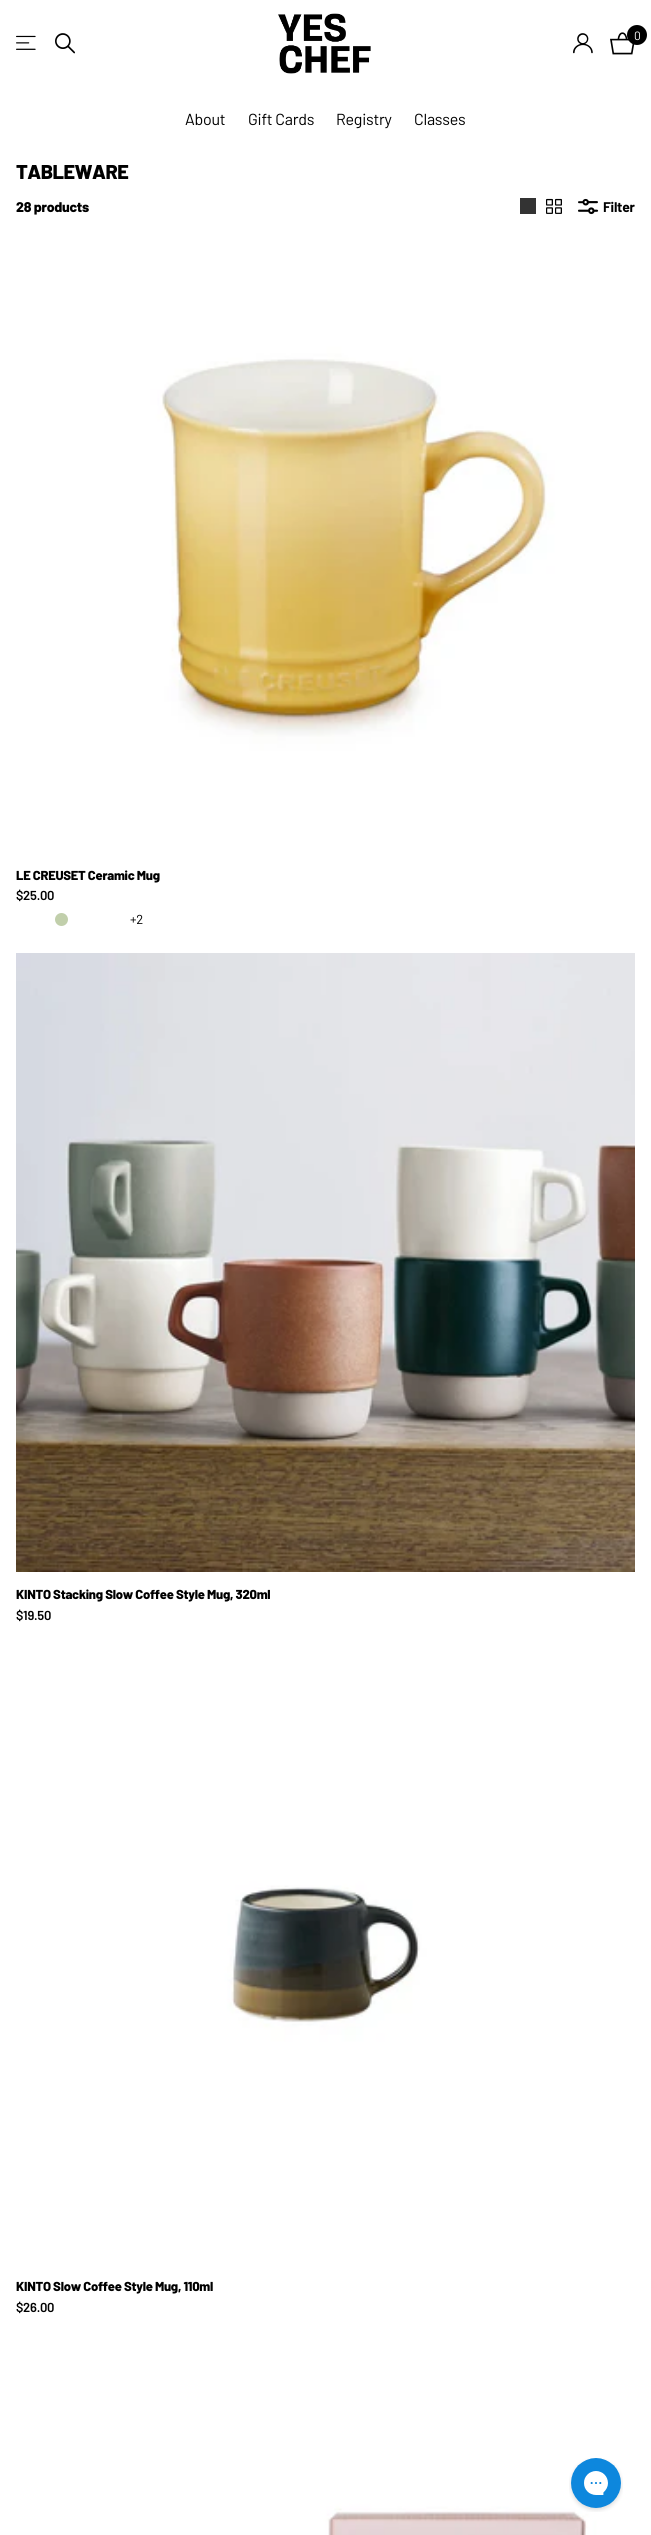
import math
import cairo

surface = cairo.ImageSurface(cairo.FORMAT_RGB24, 651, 2535)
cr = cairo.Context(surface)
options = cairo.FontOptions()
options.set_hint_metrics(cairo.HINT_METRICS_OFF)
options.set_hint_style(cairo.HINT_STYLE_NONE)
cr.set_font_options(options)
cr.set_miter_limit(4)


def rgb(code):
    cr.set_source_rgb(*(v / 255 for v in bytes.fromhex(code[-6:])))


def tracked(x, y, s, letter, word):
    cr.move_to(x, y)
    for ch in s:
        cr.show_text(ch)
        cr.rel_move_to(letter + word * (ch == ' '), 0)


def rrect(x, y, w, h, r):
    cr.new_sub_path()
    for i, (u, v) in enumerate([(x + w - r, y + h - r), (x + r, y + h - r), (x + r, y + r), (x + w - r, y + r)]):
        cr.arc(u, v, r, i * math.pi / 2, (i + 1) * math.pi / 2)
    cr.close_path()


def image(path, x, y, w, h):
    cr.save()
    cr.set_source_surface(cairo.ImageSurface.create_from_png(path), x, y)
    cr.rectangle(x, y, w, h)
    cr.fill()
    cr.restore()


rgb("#ffffff")
cr.paint()
image("img/1.png", 16, 35, 20, 15)
image("img/2.png", 55, 33, 20, 21)
image("img/3.png", 278, 13, 93, 61)
image("img/4.png", 573, 33, 20, 21)
image("img/5.png", 610, 32, 25, 23)
rgb("#000000")
cr.arc(637, 35, 10, 0, 2 * math.pi)
cr.fill()
rgb("#333333")
cr.rectangle(520, 198, 16, 16)
cr.fill()
image("img/6.png", 546, 198, 16, 16)
image("img/7.png", 578, 198, 21, 17)
image("img/8.png", 16, 234, 619, 619)
cr.save()
rrect(55, 913, 13, 13, 6.5)
cr.clip()
rgb("#c1cfab")
cr.arc(61.5, 919.5, 7.5, 0, 2 * math.pi)
cr.fill()
cr.restore()
image("img/9.png", 16, 953, 619, 619)
image("img/10.png", 16, 1645, 619, 619)
image("img/11.png", 16, 2337, 619, 198)
image("img/12.png", 569, 2458, 54, 54)
cr.select_font_face("Barlow")
cr.set_font_size(12)
rgb("#ffffff")
cr.move_to(634, 40)
cr.show_text("0")
cr.set_font_size(16)
rgb("#000000")
for x, y, s in [
    (185, 125, "About"),
    (248, 125, "Gift Cards"),
    (336, 125, "Registry"),
    (414, 125, "Classes"),
]:
    tracked(x, y, s, -0.25, 0)
cr.select_font_face("Barlow ExtraBold")
cr.set_font_size(20)
tracked(16, 179, "TABLEWARE", -0.5, 0)
cr.set_font_size(14)
tracked(16, 212, "28 products", -0.25, 0)
cr.select_font_face("Barlow", cairo.FONT_SLANT_NORMAL, cairo.FONT_WEIGHT_BOLD)
tracked(603, 212, "Filter", -0.25, 0)
cr.select_font_face("Barlow ExtraBold")
cr.set_font_size(13)
tracked(16, 880, "LE CREUSET Ceramic Mug", -0.25, 0)
cr.select_font_face("Barlow SemiBold")
tracked(16, 900, "$25.00", -0.25, 0)
cr.select_font_face("Barlow")
tracked(130, 924, "+2", -0.25, 0)
cr.select_font_face("Barlow ExtraBold")
tracked(16, 1599, "KINTO Stacking Slow Coffee Style Mug, 320ml", -0.25, 0)
cr.select_font_face("Barlow SemiBold")
tracked(16, 1620, "$19.50", -0.25, 0)
cr.select_font_face("Barlow ExtraBold")
tracked(16, 2291, "KINTO Slow Coffee Style Mug, 110ml", -0.25, 0)
cr.select_font_face("Barlow SemiBold")
tracked(16, 2312, "$26.00", -0.25, 0)
surface.write_to_png("page.png")
